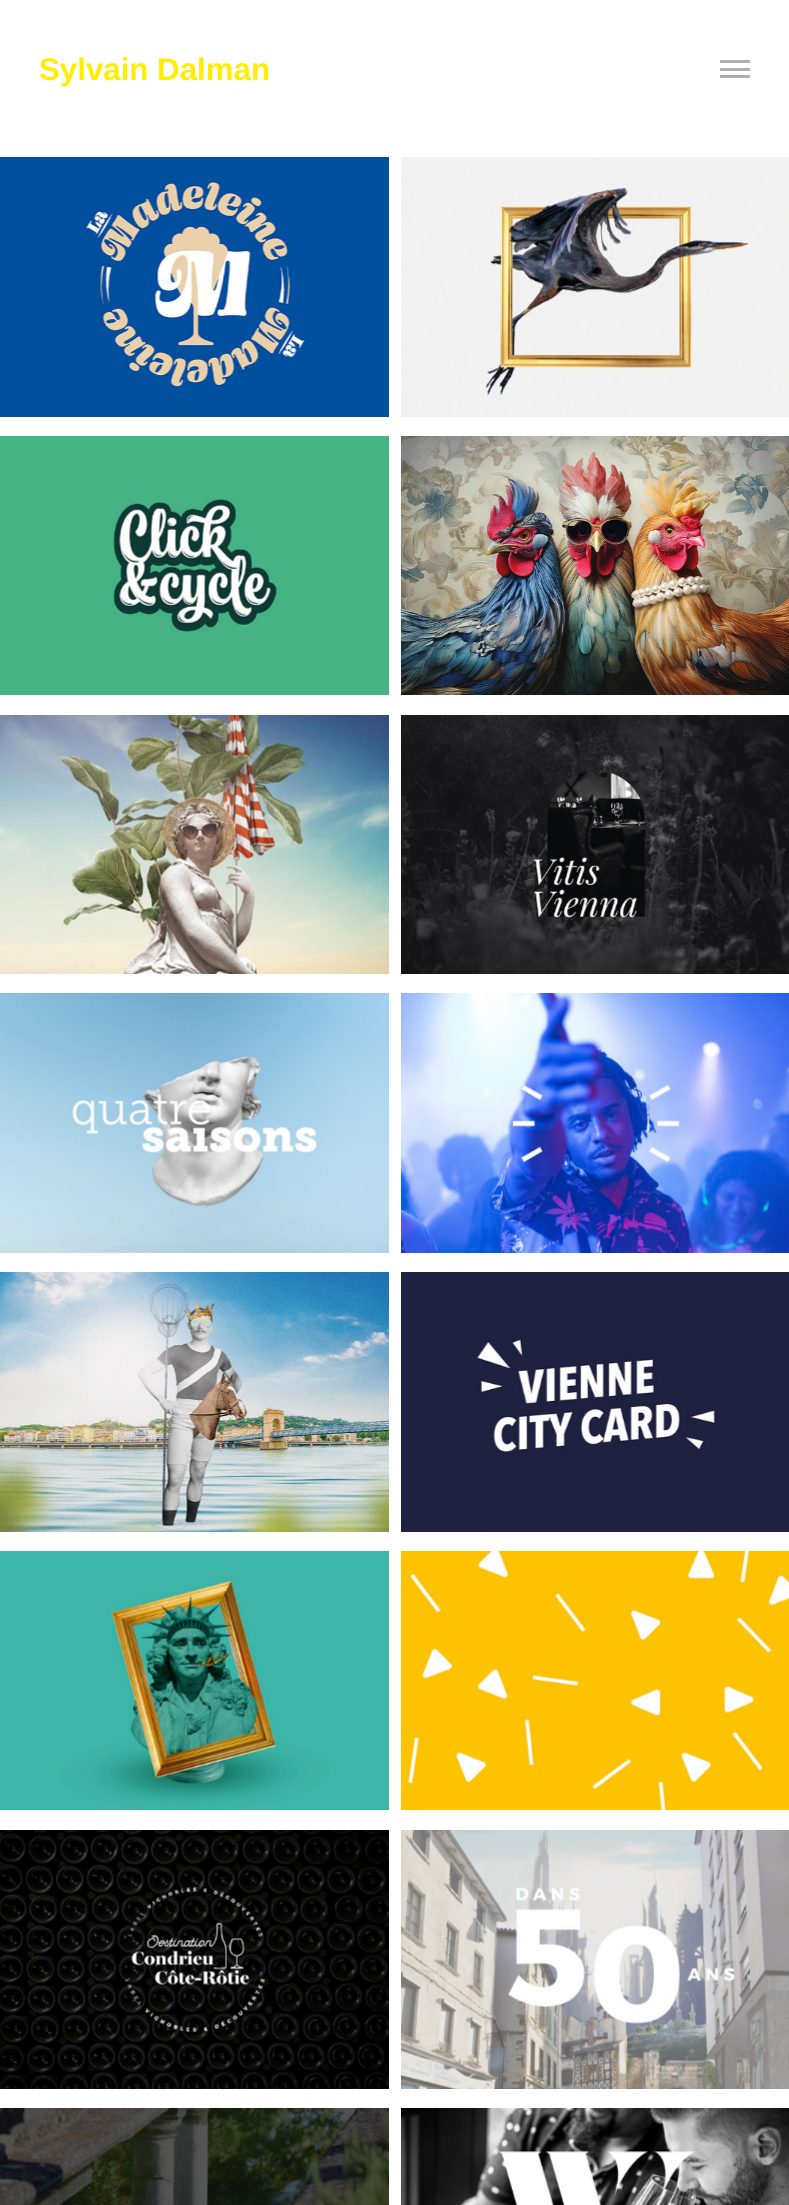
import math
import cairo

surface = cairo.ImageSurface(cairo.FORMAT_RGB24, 789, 2205)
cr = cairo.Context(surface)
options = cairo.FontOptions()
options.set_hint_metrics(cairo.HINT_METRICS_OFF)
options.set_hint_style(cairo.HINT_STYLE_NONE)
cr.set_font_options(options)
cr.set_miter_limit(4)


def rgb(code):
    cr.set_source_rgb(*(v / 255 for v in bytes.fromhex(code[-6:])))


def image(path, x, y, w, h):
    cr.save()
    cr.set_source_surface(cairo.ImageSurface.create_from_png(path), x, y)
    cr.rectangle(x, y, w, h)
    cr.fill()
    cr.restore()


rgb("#ffffff")
cr.paint()
for x, y, w, h, color in [
    (720, 60, 30, 3, "#aeaeae"),
    (720, 68, 30, 3, "#aeaeae"),
    (720, 75, 30, 3, "#aeaeae"),
]:
    rgb(color)
    cr.rectangle(x, y, w, h)
    cr.fill()
image("img/1.png", 0, 157, 389, 260)
image("img/2.png", 401, 157, 388, 260)
image("img/3.png", 0, 436, 389, 259)
image("img/4.png", 401, 436, 388, 259)
image("img/5.png", 0, 715, 389, 259)
image("img/6.png", 401, 715, 388, 259)
image("img/7.png", 0, 993, 389, 260)
image("img/8.png", 401, 993, 388, 260)
image("img/9.png", 0, 1272, 389, 260)
image("img/10.png", 401, 1272, 388, 260)
image("img/11.png", 0, 1551, 389, 259)
image("img/12.png", 401, 1551, 388, 259)
image("img/13.png", 0, 1830, 389, 259)
image("img/14.png", 401, 1830, 388, 259)
image("img/15.png", 0, 2108, 389, 97)
image("img/16.png", 401, 2108, 388, 97)
cr.select_font_face("Liberation Sans", cairo.FONT_SLANT_NORMAL, cairo.FONT_WEIGHT_BOLD)
cr.set_font_size(31.25)
rgb("#ffee00")
cr.move_to(39, 80)
cr.show_text("Sylvain Dalman")
surface.write_to_png("page.png")
